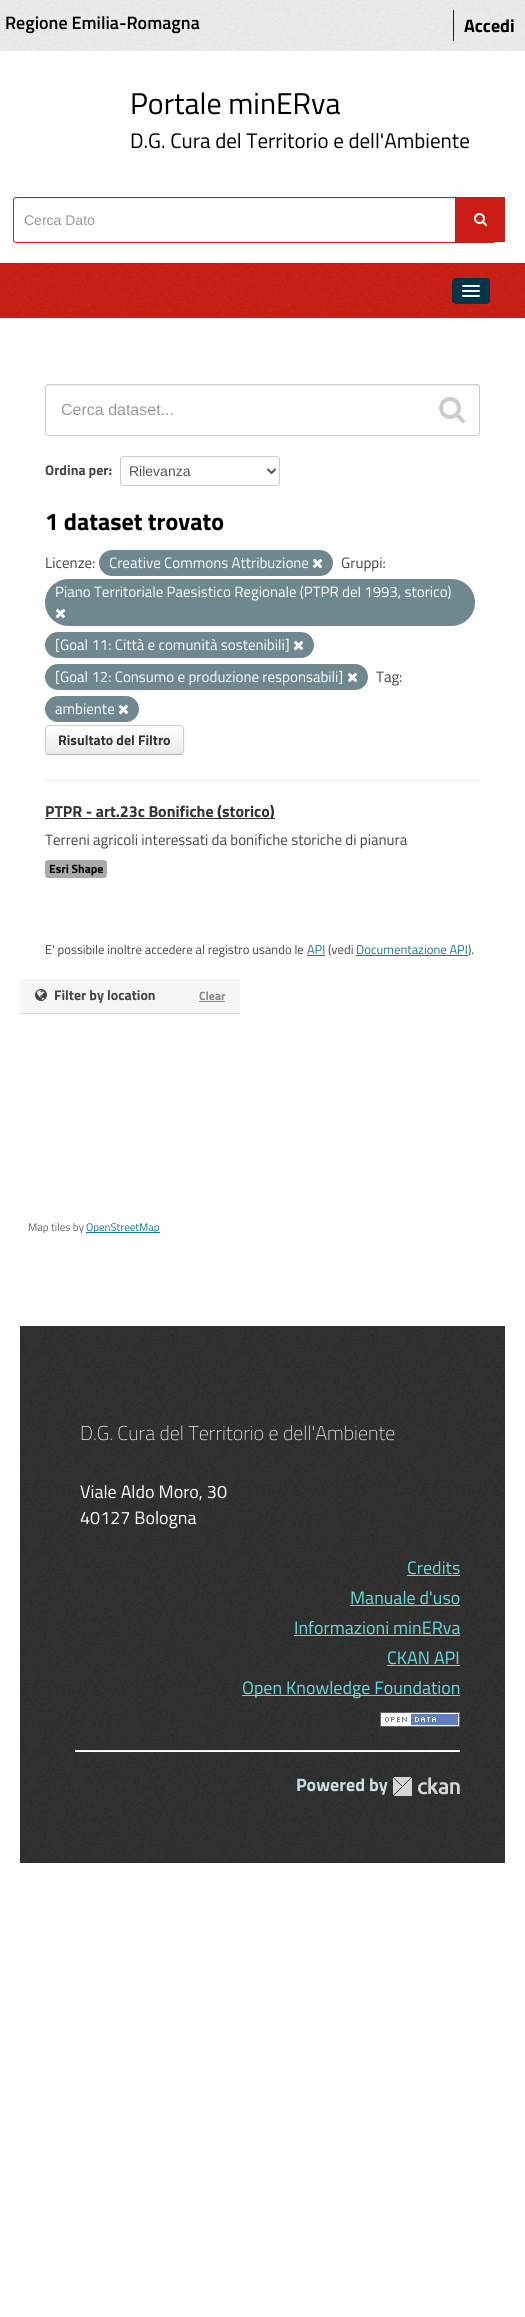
import math
import cairo

surface = cairo.ImageSurface(cairo.FORMAT_RGB24, 525, 2317)
cr = cairo.Context(surface)
options = cairo.FontOptions()
options.set_hint_metrics(cairo.HINT_METRICS_OFF)
options.set_hint_style(cairo.HINT_STYLE_NONE)
cr.set_font_options(options)
cr.set_miter_limit(4)


def rgb(code):
    cr.set_source_rgb(*(v / 255 for v in bytes.fromhex(code[-6:])))


def rrect(x, y, w, h, r):
    cr.new_sub_path()
    for i, (u, v) in enumerate([(x + w - r, y + h - r), (x + r, y + h - r), (x + r, y + r), (x + w - r, y + r)]):
        cr.arc(u, v, r, i * math.pi / 2, (i + 1) * math.pi / 2)
    cr.close_path()


def soft_shadow(x, y, w, h, r, blur, alpha):
    cr.push_group_with_content(cairo.CONTENT_ALPHA)
    cr.set_operator(cairo.OPERATOR_SOURCE)
    for i in range(15, -16, -2):
        e = blur * i / 6
        if min(w, h) + 2 * e > 0:
            cr.set_source_rgba(0, 0, 0, alpha * math.erfc((i - 1) / 8.5) / 2)
            rrect(x - e, y - e, w + 2 * e, h + 2 * e, max(0, min(r + e + blur * .6, min(w, h) / 2 + e)))
            cr.fill()
    cr.mask(cr.pop_group())


def image(path, x, y, w, h):
    cr.save()
    cr.set_source_surface(cairo.ImageSurface.create_from_png(path), x, y)
    cr.rectangle(x, y, w, h)
    cr.fill()
    cr.restore()


rgb("#ffffff")
cr.paint()
rgb("#eeeeee")
cr.rectangle(0, 0, 525, 51)
cr.fill()
image("img/1.png", 0, 0, 525, 51)
rgb("#00232e")
cr.rectangle(453, 10, 1, 31)
cr.fill()
rgb("#ececec")
cr.new_path()
cr.move_to(16, 199)
cr.line_to(493, 199)
cr.curve_to(494, 199, 495, 200, 495, 201)
cr.line_to(495, 199)
cr.line_to(493, 198)
cr.line_to(15, 198)
cr.curve_to(14, 199, 14, 200, 14, 201)
cr.curve_to(14, 200, 15, 199, 16, 199)
cr.close_path()
cr.fill()
rrect(13.5, 197.5, 482, 45, 2.5)
rgb("#cb1d15")
cr.set_line_width(1)
cr.stroke()
cr.rectangle(455, 197, 50, 45)
cr.fill()
image("img/2.png", 474, 213, 13, 13)
cr.rectangle(0, 263, 525, 55)
cr.fill()
image("img/3.png", 0, 263, 525, 55)
rgb("#003647")
rrect(452, 278, 38, 26, 4)
cr.fill()
rgb("#002935")
cr.new_path()
cr.move_to(462, 286.5)
cr.curve_to(461, 288.5, 465.5, 288, 465.5, 288)
cr.line_to(476.5, 288)
cr.curve_to(476.5, 288, 481, 288.5, 480, 286.5)
cr.curve_to(479, 287.5, 472.5, 287, 471, 287)
cr.curve_to(469.5, 287, 463, 287.5, 462, 286.5)
cr.close_path()
cr.fill()
rgb("#f5f5f5")
rrect(462, 285, 18, 2, 1)
cr.fill()
rgb("#002935")
cr.new_path()
cr.move_to(462, 291.5)
cr.curve_to(461, 293.5, 465.5, 293, 465.5, 293)
cr.line_to(476.5, 293)
cr.curve_to(476.5, 293, 481, 293.5, 480, 291.5)
cr.curve_to(479, 292.5, 472.5, 292, 471, 292)
cr.curve_to(469.5, 292, 463, 292.5, 462, 291.5)
cr.close_path()
cr.fill()
rgb("#f5f5f5")
rrect(462, 290, 18, 2, 1)
cr.fill()
rgb("#002935")
cr.new_path()
cr.move_to(462, 296.5)
cr.curve_to(461, 298.5, 465.5, 298, 465.5, 298)
cr.line_to(476.5, 298)
cr.curve_to(476.5, 298, 481, 298.5, 480, 296.5)
cr.curve_to(479, 297.5, 472.5, 297, 471, 297)
cr.curve_to(469.5, 297, 463, 297.5, 462, 296.5)
cr.close_path()
cr.fill()
rgb("#f5f5f5")
rrect(462, 295, 18, 2, 1)
cr.fill()
cr.new_path()
cr.move_to(45, 780.5)
cr.line_to(480, 780.5)
rgb("#dddddd")
cr.set_dash([1, 1])
cr.stroke()
rgb("#ececec")
cr.new_path()
cr.move_to(48, 386)
cr.line_to(477, 386)
cr.curve_to(478, 386, 479, 387, 479, 388)
cr.line_to(479, 386)
cr.line_to(477, 385)
cr.line_to(48, 385)
cr.curve_to(46, 385, 46, 387, 46, 388)
cr.curve_to(46, 387, 47, 386, 48, 386)
cr.close_path()
cr.fill()
rrect(45.5, 384.5, 434, 51, 2.5)
rgb("#cccccc")
cr.set_dash([])
cr.stroke()
image("img/4.png", 439, 397, 26, 26)
rrect(120.5, 456.5, 159, 29, 2.5)
cr.stroke()
cr.new_path()
cr.move_to(267.5, 469)
cr.line_to(271.5, 473)
cr.line_to(275.5, 469)
rgb("#555555")
cr.set_line_width(2)
cr.stroke()
rgb("#6f8890")
rrect(99, 550, 234, 26, 13)
cr.fill()
image("img/5.png", 312, 558, 11, 11)
rrect(45, 579, 430, 47, 23.5)
cr.fill()
image("img/5.png", 55, 608, 11, 11)
rrect(45, 632, 269, 26, 13)
cr.fill()
image("img/5.png", 293, 640, 11, 11)
rrect(45, 664, 323, 26, 13)
cr.fill()
image("img/5.png", 347, 672, 11, 11)
rrect(45, 696, 94, 26, 13)
cr.fill()
image("img/5.png", 118, 704, 11, 11)
rgb("#000000")
soft_shadow(45, 726, 139, 30, 4, 1, 0.05)
cr.save()
rrect(45, 725, 139, 30, 4)
cr.clip()
gradient = cairo.LinearGradient(115, 726, 115, 754)
gradient.add_color_stop_rgba(0, 1, 1, 1, 1)
gradient.add_color_stop_rgba(1, 0.918, 0.918, 0.918, 1)
cr.set_source(gradient)
cr.rectangle(45, 726, 139, 28)
cr.fill()
cr.restore()
cr.new_path()
cr.move_to(182.5, 753.5)
cr.curve_to(182, 754, 181, 754.5, 180, 754.5)
cr.line_to(49, 754.5)
cr.curve_to(48, 754.5, 47, 754, 46.5, 753.5)
rgb("#b3b3b3")
cr.set_line_width(1)
cr.stroke()
cr.new_path()
cr.move_to(46.5, 753.5)
cr.curve_to(44.5, 751.5, 45.5, 743, 45.5, 740)
cr.line_to(45.5, 732.5)
cr.curve_to(45.5, 730, 45, 725.5, 49, 725.5)
cr.line_to(180, 725.5)
cr.curve_to(184, 725.5, 183.5, 730, 183.5, 732.5)
cr.line_to(183.5, 740)
cr.curve_to(183.5, 743, 184.5, 751.5, 182.5, 753.5)
rgb("#cccccc")
cr.stroke()
rgb("#333333")
cr.rectangle(45, 818, 230, 1)
cr.fill()
rgb("#aaaaaa")
rrect(45, 860, 62, 18, 3)
cr.fill()
rgb("#187794")
cr.rectangle(307, 955, 18, 1)
cr.fill()
cr.rectangle(356, 955, 112, 1)
cr.fill()
rgb("#f6f6f6")
cr.new_path()
cr.move_to(23, 979)
cr.line_to(240, 979)
cr.line_to(240, 1014)
cr.line_to(20, 1014)
cr.line_to(20, 982)
cr.curve_to(20, 980.5, 21.5, 979, 23, 979)
cr.close_path()
cr.fill()
rgb("#dddddd")
cr.rectangle(20, 1013, 220, 1)
cr.fill()
image("img/6.png", 35, 989, 12, 12)
for x, y, w, h, color in [
    (199, 1001, 26, 1, "#888888"),
    (86, 1232, 74, 1, "#187794"),
    (20, 1326, 485, 537, "#303030"),
]:
    rgb(color)
    cr.rectangle(x, y, w, h)
    cr.fill()
image("img/7.png", 20, 1326, 485, 537)
for x, y, w, h, color in [
    (407, 1575, 53, 1, "#65dde0"),
    (350, 1605, 110, 1, "#65dde0"),
    (294, 1635, 166, 1, "#65dde0"),
    (387, 1665, 73, 1, "#65dde0"),
    (242, 1695, 218, 1, "#65dde0"),
]:
    rgb(color)
    cr.rectangle(x, y, w, h)
    cr.fill()
image("img/8.png", 380, 1712, 80, 15)
rgb("#eeeeee")
cr.rectangle(75, 1750, 385, 1)
cr.fill()
rgb("#ffffff")
cr.rectangle(75, 1751, 385, 1)
cr.fill()
image("img/9.png", 393, 1777, 67, 19)
cr.select_font_face("Titillium Web SemiBold")
cr.set_font_size(18)
rgb("#000000")
cr.move_to(5, 29)
cr.show_text("Regione Emilia-Romagna")
cr.select_font_face("Titillium Web", cairo.FONT_SLANT_NORMAL, cairo.FONT_WEIGHT_BOLD)
cr.move_to(464, 32)
cr.show_text("Accedi")
cr.select_font_face("Titillium Web")
cr.set_font_size(30)
cr.move_to(130, 114)
cr.show_text("Portale minERva")
cr.set_font_size(21)
cr.move_to(130, 148)
cr.show_text("D.G. Cura del Territorio e dell'Ambiente")
cr.select_font_face("Liberation Sans")
cr.set_font_size(14)
rgb("#999999")
cr.move_to(24, 225)
cr.show_text("Cerca Dato")
cr.set_font_size(16)
cr.move_to(61, 415)
cr.show_text("Cerca dataset...")
cr.select_font_face("Titillium Web", cairo.FONT_SLANT_NORMAL, cairo.FONT_WEIGHT_BOLD)
cr.set_font_size(14)
rgb("#444444")
cr.move_to(45, 475)
cr.show_text("Ordina per:")
cr.select_font_face("Liberation Sans")
rgb("#555555")
cr.move_to(129, 476)
cr.show_text("Rilevanza")
cr.select_font_face("Titillium Web", cairo.FONT_SLANT_NORMAL, cairo.FONT_WEIGHT_BOLD)
cr.set_font_size(24)
rgb("#000000")
cr.move_to(45, 530)
cr.show_text("1 dataset trovato")
cr.select_font_face("Titillium Web")
cr.set_font_size(15)
rgb("#444444")
cr.move_to(45, 568)
cr.show_text("Licenze:")
rgb("#ffffff")
cr.move_to(109, 568)
cr.show_text("Creative Commons Attribuzione")
rgb("#444444")
cr.move_to(341, 568)
cr.show_text("Gruppi:")
rgb("#ffffff")
for x, y, s in [
    (55, 597, "Piano Territoriale Paesistico Regionale (PTPR del 1993, storico)"),
    (55, 650, "[Goal 11: Città e comunità sostenibili]"),
    (55, 682, "[Goal 12: Consumo e produzione responsabili]"),
]:
    cr.move_to(x, y)
    cr.show_text(s)
rgb("#444444")
cr.move_to(376, 682)
cr.show_text("Tag:")
rgb("#ffffff")
cr.move_to(55, 714)
cr.show_text("ambiente")
cr.select_font_face("Titillium Web", cairo.FONT_SLANT_NORMAL, cairo.FONT_WEIGHT_BOLD)
cr.set_font_size(14)
rgb("#333333")
cr.move_to(58, 745)
cr.show_text("Risultato del Filtro")
cr.set_font_size(16)
cr.move_to(45, 817)
cr.show_text("PTPR - art.23c Bonifiche (storico)")
cr.select_font_face("Titillium Web")
cr.set_font_size(15)
rgb("#444444")
cr.move_to(45, 845)
cr.show_text("Terreni agricoli interessati da bonifiche storiche di pianura")
cr.select_font_face("Titillium Web", cairo.FONT_SLANT_NORMAL, cairo.FONT_WEIGHT_BOLD)
cr.set_font_size(12)
rgb("#000000")
cr.move_to(49, 873)
cr.show_text("Esri Shape")
cr.select_font_face("Titillium Web")
cr.set_font_size(12.75)
rgb("#444444")
cr.move_to(45, 954)
cr.show_text("E' possibile inoltre accedere al registro usando le")
rgb("#187794")
cr.move_to(307, 954)
cr.show_text("API")
rgb("#444444")
cr.move_to(328, 954)
cr.show_text("(vedi")
rgb("#187794")
cr.move_to(356, 954)
cr.show_text("Documentazione API")
rgb("#444444")
cr.move_to(468, 954)
cr.show_text(").")
cr.select_font_face("Titillium Web", cairo.FONT_SLANT_NORMAL, cairo.FONT_WEIGHT_BOLD)
cr.set_font_size(14)
cr.move_to(54, 1000)
cr.show_text("Filter by location")
cr.set_font_size(12)
rgb("#888888")
cr.move_to(199, 1000)
cr.show_text("Clear")
cr.select_font_face("Titillium Web")
cr.set_font_size(11)
rgb("#666666")
cr.move_to(28, 1231)
cr.show_text("Map tiles by")
rgb("#187794")
cr.move_to(86, 1231)
cr.show_text("OpenStreetMap")
cr.select_font_face("Titillium Web Light")
cr.set_font_size(20)
rgb("#ffffff")
cr.move_to(80, 1440)
cr.show_text("D.G. Cura del Territorio e dell'Ambiente")
cr.select_font_face("Titillium Web")
cr.set_font_size(18)
cr.move_to(80, 1498)
cr.show_text("Viale Aldo Moro, 30")
cr.move_to(80, 1524)
cr.show_text("40127 Bologna")
rgb("#65dde0")
for x, y, s in [
    (407, 1574, "Credits"),
    (350, 1604, "Manuale d'uso"),
    (294, 1634, "Informazioni minERva"),
    (387, 1664, "CKAN API"),
    (242, 1694, "Open Knowledge Foundation"),
]:
    cr.move_to(x, y)
    cr.show_text(s)
cr.select_font_face("Titillium Web", cairo.FONT_SLANT_NORMAL, cairo.FONT_WEIGHT_BOLD)
rgb("#ccdee3")
cr.move_to(296, 1791)
cr.show_text("Powered by")
surface.write_to_png("page.png")
